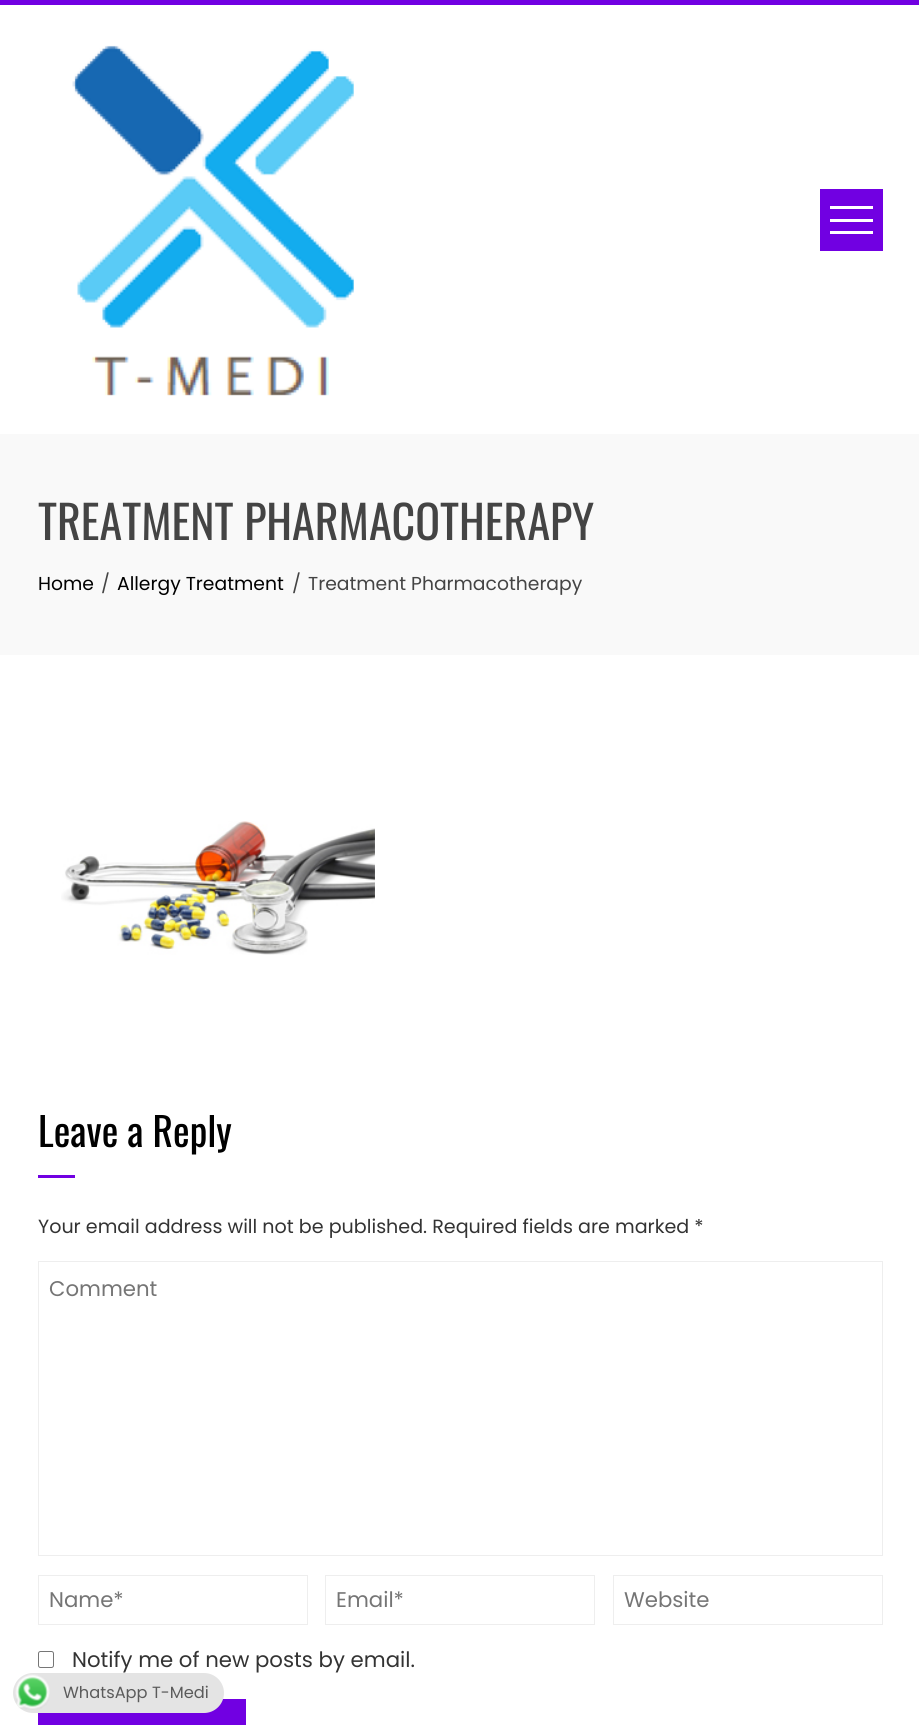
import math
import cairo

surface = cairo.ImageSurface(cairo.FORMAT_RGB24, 919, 1725)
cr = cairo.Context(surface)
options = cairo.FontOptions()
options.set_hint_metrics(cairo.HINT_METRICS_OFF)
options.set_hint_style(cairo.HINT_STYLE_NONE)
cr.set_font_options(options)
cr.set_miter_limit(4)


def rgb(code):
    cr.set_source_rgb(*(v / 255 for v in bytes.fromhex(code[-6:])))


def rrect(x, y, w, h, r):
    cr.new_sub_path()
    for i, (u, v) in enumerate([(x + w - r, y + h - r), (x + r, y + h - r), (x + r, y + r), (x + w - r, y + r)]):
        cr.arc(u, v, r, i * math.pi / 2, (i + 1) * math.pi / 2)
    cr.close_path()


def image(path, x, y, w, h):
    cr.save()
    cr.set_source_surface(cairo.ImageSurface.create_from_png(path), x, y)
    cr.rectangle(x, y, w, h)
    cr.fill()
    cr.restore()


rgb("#ffffff")
cr.paint()
rgb("#7100e2")
cr.rectangle(0, 0, 919, 5)
cr.fill()
image("img/1.png", 72, 45, 282, 351)
for x, y, w, h, color in [
    (820, 189, 63, 62, "#7100e2"),
    (830, 206, 43, 3, "#ffffff"),
    (830, 231, 43, 3, "#ffffff"),
    (830, 219, 43, 3, "#ffffff"),
    (0, 434, 919, 221, "#f9f9f9"),
]:
    rgb(color)
    cr.rectangle(x, y, w, h)
    cr.fill()
image("img/2.png", 61, 821, 314, 134)
rgb("#7100e2")
cr.rectangle(38, 1175, 37, 3)
cr.fill()
cr.rectangle(38.5, 1261.5, 844, 294)
rgb("#eeeeee")
cr.set_line_width(1)
cr.stroke()
cr.rectangle(38.5, 1575.5, 269, 49)
cr.stroke()
cr.rectangle(325.5, 1575.5, 269, 49)
cr.stroke()
cr.rectangle(613.5, 1575.5, 269, 49)
cr.stroke()
rrect(38.5, 1651.5, 15, 16, 2)
rgb("#767676")
cr.stroke()
rgb("#7100e2")
cr.rectangle(38, 1699, 208, 26)
cr.fill()
rgb("#e4e4e4")
rrect(13, 1673, 211, 40, 20)
cr.fill()
image("img/3.png", 15, 1674, 35, 36)
cr.select_font_face("Oswald")
cr.set_font_size(46)
rgb("#444444")
cr.move_to(38, 540)
cr.show_text("TREATMENT PHARMACOTHERAPY")
cr.select_font_face("Poppins")
cr.set_font_size(18.75)
rgb("#000000")
cr.move_to(38, 590)
cr.show_text("Home")
rgb("#444444")
cr.move_to(101, 590)
cr.show_text("/")
rgb("#000000")
cr.move_to(117, 590)
cr.show_text("Allergy Treatment")
rgb("#444444")
cr.move_to(292, 590)
cr.show_text("/")
cr.move_to(308, 590)
cr.show_text("Treatment Pharmacotherapy")
cr.select_font_face("Oswald")
cr.set_font_size(39.5)
rgb("#000000")
cr.move_to(38, 1147)
cr.show_text("Leave a Reply")
cr.select_font_face("Poppins")
cr.set_font_size(19.1)
rgb("#333333")
cr.move_to(38, 1233)
cr.show_text("Your email address will not be published. Required fields are marked *")
cr.set_font_size(21.25)
rgb("#757575")
for x, y, s in [
    (49, 1296, "Comment"),
    (49, 1607, "Name*"),
    (336, 1607, "Email*"),
    (624, 1607, "Website"),
]:
    cr.move_to(x, y)
    cr.show_text(s)
rgb("#333333")
cr.move_to(72, 1667)
cr.show_text("Notify me of new posts by email.")
cr.set_font_size(16.25)
rgb("#5b5b5b")
cr.move_to(63, 1698)
cr.show_text("WhatsApp T-Medi")
surface.write_to_png("page.png")
